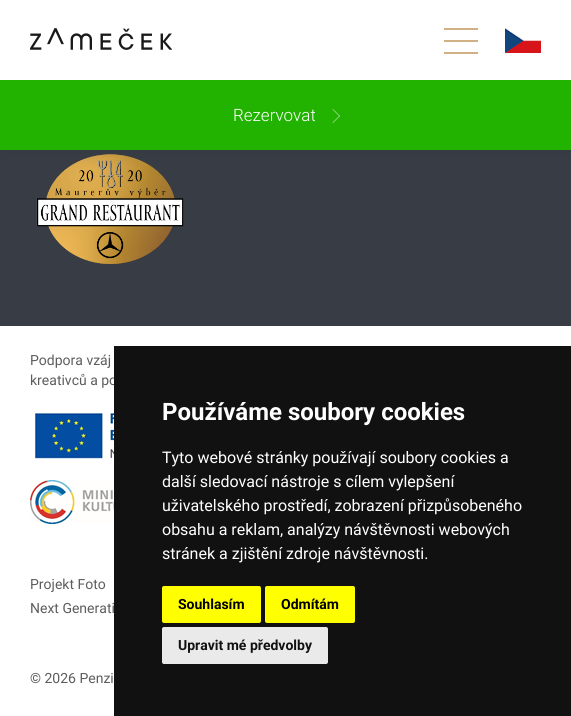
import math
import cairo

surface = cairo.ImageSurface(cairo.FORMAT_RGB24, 571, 716)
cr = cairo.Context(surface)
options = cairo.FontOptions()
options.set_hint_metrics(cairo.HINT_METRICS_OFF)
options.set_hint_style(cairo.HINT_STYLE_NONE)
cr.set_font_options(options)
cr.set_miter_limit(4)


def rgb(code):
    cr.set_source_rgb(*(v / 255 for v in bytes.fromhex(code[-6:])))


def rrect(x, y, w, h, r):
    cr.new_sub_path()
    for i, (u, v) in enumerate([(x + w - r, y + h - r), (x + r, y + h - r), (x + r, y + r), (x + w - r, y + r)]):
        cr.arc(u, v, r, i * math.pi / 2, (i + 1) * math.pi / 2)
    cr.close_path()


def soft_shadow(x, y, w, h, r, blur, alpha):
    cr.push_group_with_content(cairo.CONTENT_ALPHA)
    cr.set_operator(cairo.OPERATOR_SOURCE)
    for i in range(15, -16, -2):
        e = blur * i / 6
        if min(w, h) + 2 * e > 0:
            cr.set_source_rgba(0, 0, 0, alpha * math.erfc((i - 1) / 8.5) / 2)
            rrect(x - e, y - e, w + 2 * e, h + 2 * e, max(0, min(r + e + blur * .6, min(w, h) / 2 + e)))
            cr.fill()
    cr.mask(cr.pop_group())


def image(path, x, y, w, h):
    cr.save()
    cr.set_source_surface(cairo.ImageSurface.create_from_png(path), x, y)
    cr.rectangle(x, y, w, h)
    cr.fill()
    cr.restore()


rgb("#373c45")
cr.paint()
image("img/3.png", 36, 154, 148, 110)
rgb("#323232")
soft_shadow(0, 5, 571, 150, 0, 5, 0.15)
rgb("#ffffff")
cr.rectangle(0, 0, 571, 80)
cr.fill()
image("img/1.png", 30, 28, 142, 22)
for x, y, w, h, color in [
    (444, 40, 34, 2, "#d1b183"),
    (444, 28, 34, 2, "#d1b183"),
    (444, 52, 34, 2, "#d1b183"),
]:
    rgb(color)
    cr.rectangle(x, y, w, h)
    cr.fill()
image("img/2.png", 505, 28, 36, 25)
rgb("#22b301")
cr.rectangle(0, 80, 571, 70)
cr.fill()
rgb("#a7e199")
cr.new_path()
cr.move_to(333, 109)
cr.line_to(340, 116)
cr.line_to(339.5, 116.5)
cr.line_to(332.5, 109.5)
cr.close_path()
cr.fill()
cr.new_path()
cr.move_to(339.5, 115.5)
cr.line_to(340, 116)
cr.line_to(333, 123)
cr.line_to(332.5, 122.5)
cr.close_path()
cr.fill()
rgb("#ffffff")
cr.rectangle(0, 326, 571, 390)
cr.fill()
image("img/4.png", 30, 412, 84, 47)
image("img/5.png", 30, 480, 84, 44)
cr.select_font_face("Roboto Light")
cr.set_font_size(17)
cr.move_to(233, 121)
cr.show_text("Rezervovat")
cr.select_font_face("Roboto")
cr.set_font_size(14)
rgb("#5d5d5d")
for x, y, s in [
    (30, 365, "Podpora vzáj"),
    (30, 385, "kreativců a po"),
    (30, 589, "Projekt Foto"),
    (30, 613, "Next Generati"),
    (30, 683, "© 2026 Penzi"),
]:
    cr.move_to(x, y)
    cr.show_text(s)
rgb("#111111")
cr.rectangle(114, 346, 457, 370)
cr.fill()
cr.select_font_face("Roboto", cairo.FONT_SLANT_NORMAL, cairo.FONT_WEIGHT_BOLD)
cr.set_font_size(24)
rgb("#ffffff")
cr.move_to(162, 420)
cr.show_text("Používáme soubory cookies")
cr.select_font_face("Roboto")
cr.set_font_size(16)
for x, y, s in [
    (162, 463, "Tyto webové stránky používají soubory cookies a"),
    (162, 487, "další sledovací nástroje s cílem vylepšení"),
    (162, 511, "uživatelského prostředí, zobrazení přizpůsobeného"),
    (162, 535, "obsahu a reklam, analýzy návštěvnosti webových"),
    (162, 559, "stránek a zjištění zdroje návštěvnosti."),
]:
    cr.move_to(x, y)
    cr.show_text(s)
rgb("#ffff00")
rrect(162, 586, 99, 37, 2)
cr.fill()
cr.select_font_face("Roboto", cairo.FONT_SLANT_NORMAL, cairo.FONT_WEIGHT_BOLD)
cr.set_font_size(14)
rgb("#000000")
cr.move_to(178, 609)
cr.show_text("Souhlasím")
rgb("#ffff00")
rrect(265, 586, 90, 37, 2)
cr.fill()
rgb("#000000")
cr.move_to(281, 609)
cr.show_text("Odmítám")
rgb("#eaeaea")
rrect(162, 627, 166, 37, 2)
cr.fill()
rgb("#111111")
cr.move_to(178, 650)
cr.show_text("Upravit mé předvolby")
surface.write_to_png("page.png")
